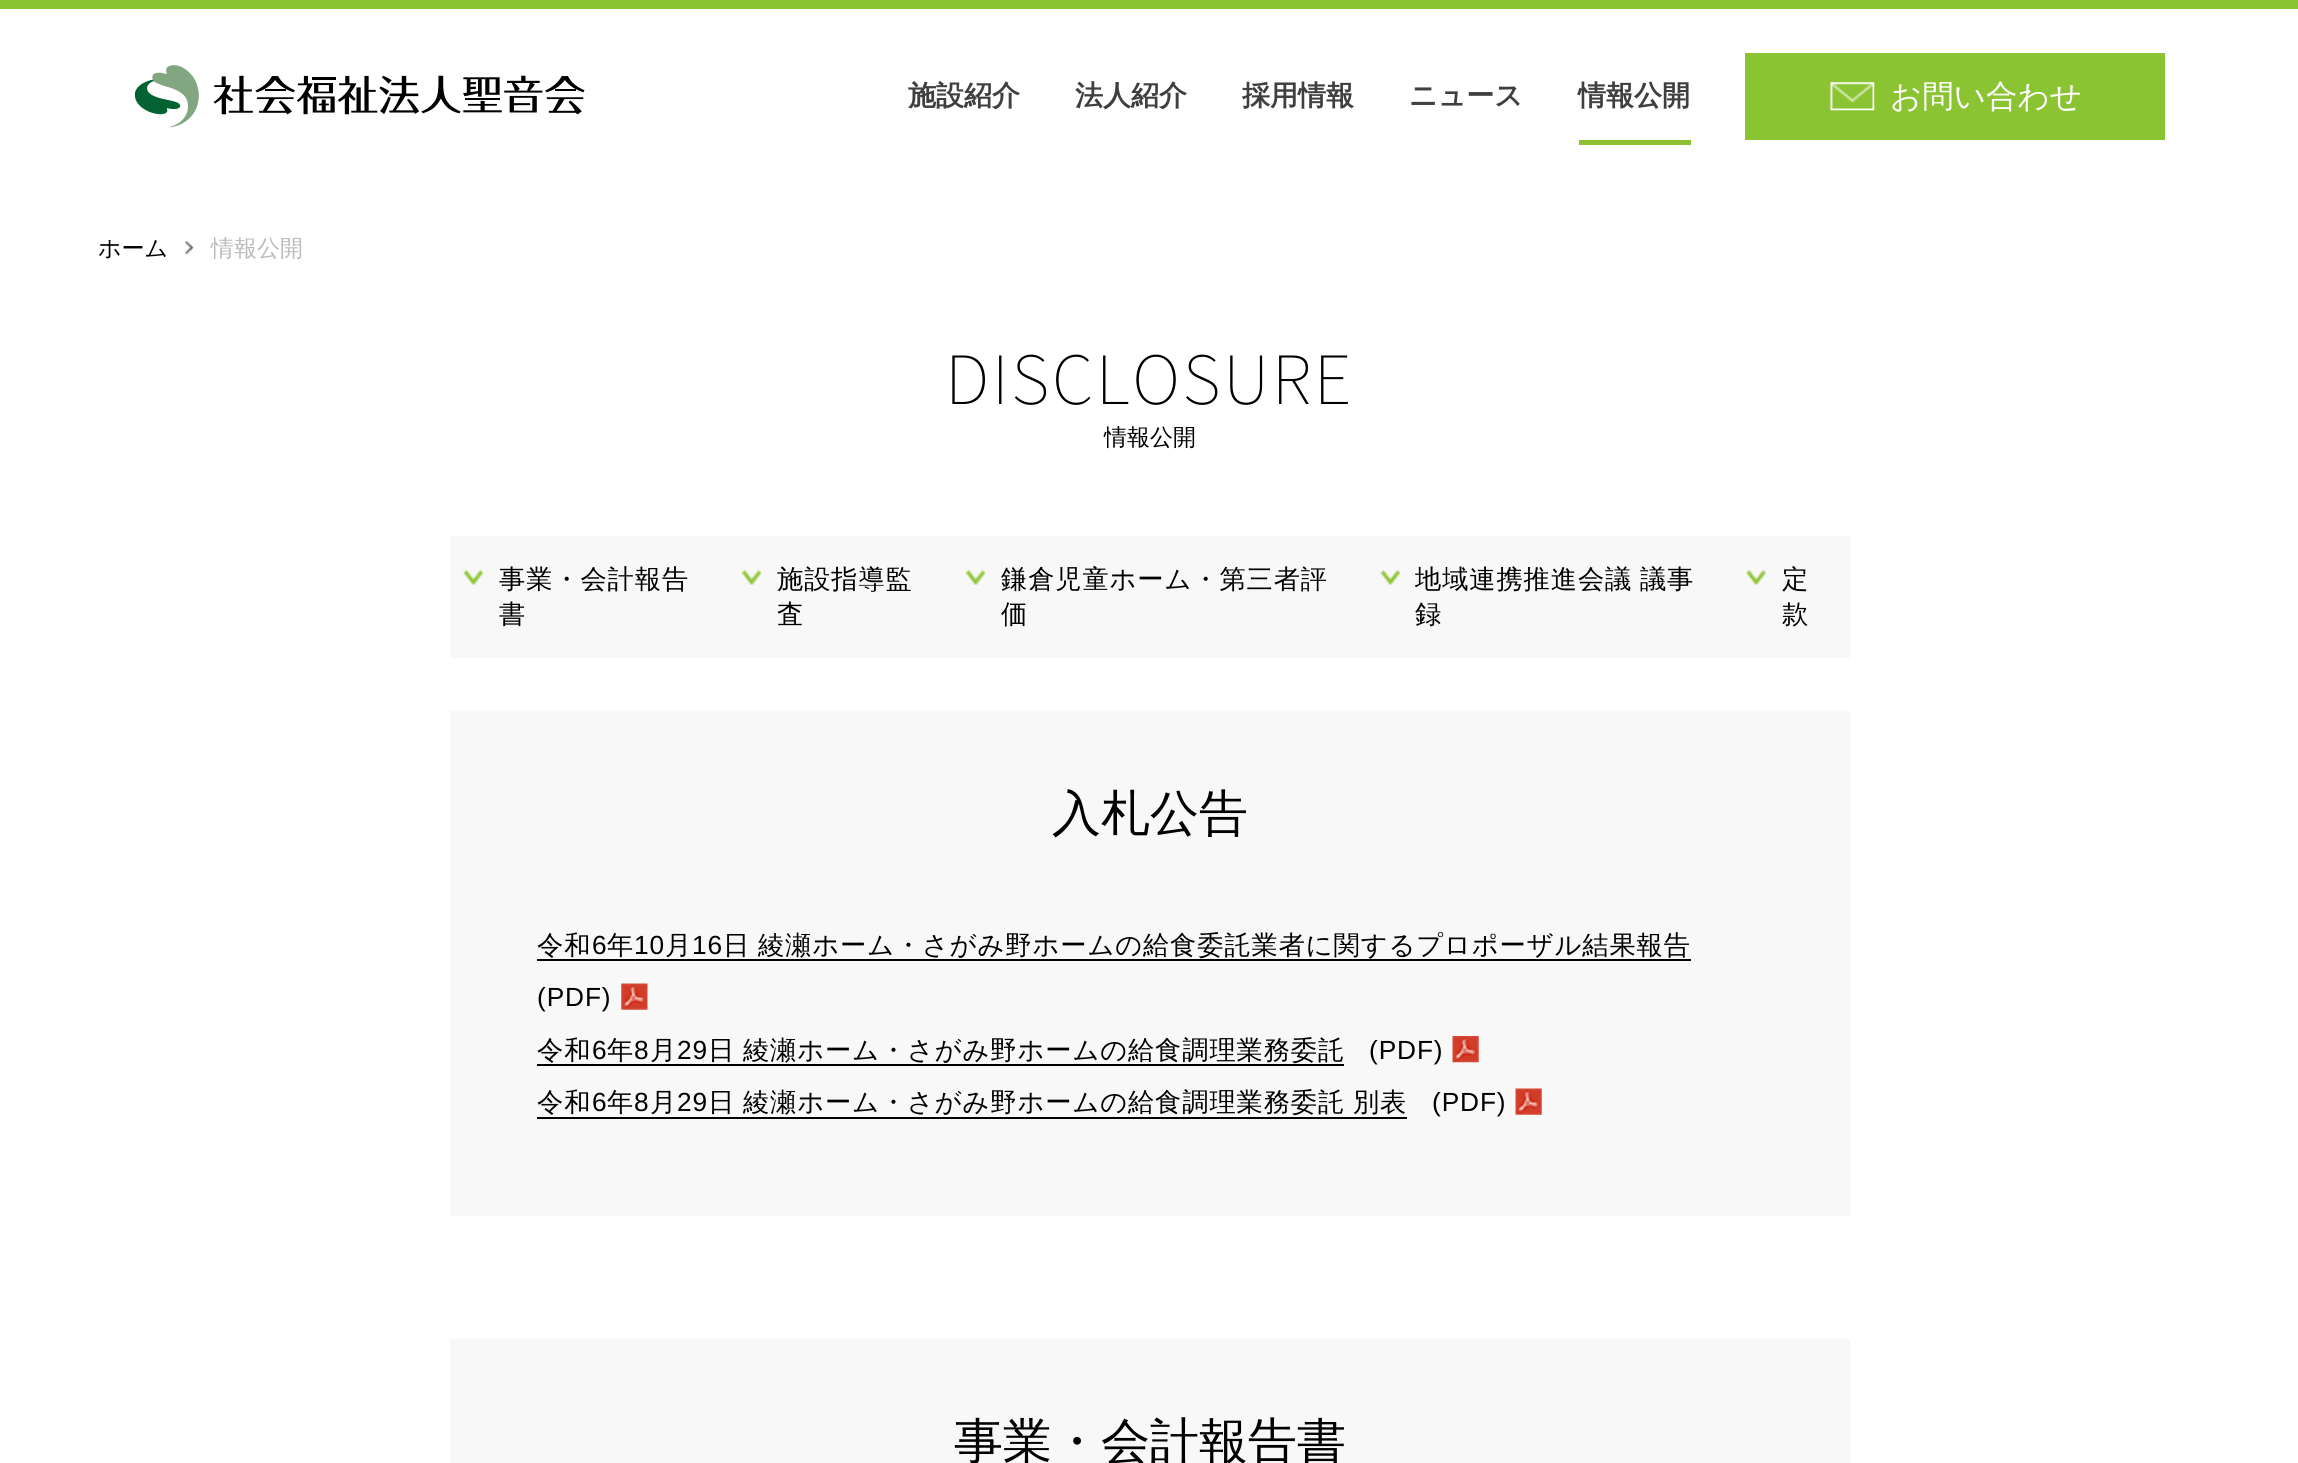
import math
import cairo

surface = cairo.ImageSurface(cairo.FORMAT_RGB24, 2298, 1463)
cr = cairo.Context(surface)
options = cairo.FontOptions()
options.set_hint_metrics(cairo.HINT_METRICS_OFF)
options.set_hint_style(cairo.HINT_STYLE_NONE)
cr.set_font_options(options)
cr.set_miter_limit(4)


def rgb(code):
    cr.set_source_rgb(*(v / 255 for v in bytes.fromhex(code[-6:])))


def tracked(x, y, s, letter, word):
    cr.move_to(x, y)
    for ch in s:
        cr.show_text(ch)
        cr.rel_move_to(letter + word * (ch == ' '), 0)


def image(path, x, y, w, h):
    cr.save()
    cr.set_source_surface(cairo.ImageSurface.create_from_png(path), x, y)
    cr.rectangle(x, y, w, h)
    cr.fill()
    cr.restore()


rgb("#ffffff")
cr.paint()
rgb("#8bc433")
cr.rectangle(0, 0, 2298, 9)
cr.fill()
image("img/1.png", 135, 65, 450, 63)
rgb("#8dc031")
cr.rectangle(1579, 140, 112, 5)
cr.fill()
rgb("#8bc433")
cr.rectangle(1745, 53, 420, 87)
cr.fill()
image("img/2.png", 1830, 82, 45, 29)
image("img/3.png", 185, 241, 9, 14)
rgb("#f9f8f8")
cr.rectangle(450, 536, 1400, 122)
cr.fill()
image("img/4.png", 463, 570, 20, 15)
image("img/5.png", 742, 570, 20, 15)
image("img/5.png", 966, 570, 20, 15)
image("img/6.png", 1380, 570, 20, 15)
image("img/7.png", 1746, 570, 20, 15)
cr.rectangle(450, 711, 1400, 505)
cr.fill()
rgb("#000000")
cr.rectangle(537, 959, 1154, 2)
cr.fill()
image("img/8.png", 621, 983, 27, 27)
cr.rectangle(537, 1064, 807, 2)
cr.fill()
image("img/9.png", 1452, 1036, 27, 27)
cr.rectangle(537, 1117, 870, 2)
cr.fill()
image("img/10.png", 1515, 1088, 27, 27)
rgb("#f9f8f8")
cr.rectangle(450, 1339, 1400, 124)
cr.fill()
cr.select_font_face("WenQuanYi Zen Hei", cairo.FONT_SLANT_NORMAL, cairo.FONT_WEIGHT_BOLD)
cr.set_font_size(28)
rgb("#3f3f3f")
for x, y, s in [
    (908, 105, "施設紹介"),
    (1075, 105, "法人紹介"),
    (1242, 105, "採用情報"),
    (1409, 105, "ニュース"),
    (1578, 105, "情報公開"),
]:
    cr.move_to(x, y)
    cr.show_text(s)
cr.select_font_face("WenQuanYi Zen Hei Medium")
cr.set_font_size(31.5)
rgb("#ffffff")
cr.move_to(1890, 107)
cr.show_text("お問い合わせ")
cr.set_font_size(23)
rgb("#000000")
cr.move_to(98, 256)
cr.show_text("ホーム")
rgb("#bbbbbb")
cr.move_to(211, 256)
cr.show_text("情報公開")
cr.select_font_face("Mada ExtraLight")
cr.set_font_size(73.5)
rgb("#000000")
tracked(945, 404, "DISCLOSURE", 2.6, 0)
cr.select_font_face("WenQuanYi Zen Hei Medium")
cr.set_font_size(23)
cr.move_to(1104, 445)
cr.show_text("情報公開")
cr.set_font_size(26.25)
for x, y, s in [
    (499, 588, "事業・会計報告"),
    (499, 623, "書"),
    (777, 588, "施設指導監"),
    (777, 623, "査"),
    (1001, 588, "鎌倉児童ホーム・第三者評"),
    (1001, 623, "価"),
]:
    tracked(x, y, s, 0.9, 0)
tracked(1415, 588, "地域連携推進会議 議事", 0.9, -1)
for x, y, s in [
    (1415, 623, "録"),
    (1782, 588, "定"),
    (1782, 623, "款"),
]:
    tracked(x, y, s, 0.9, 0)
cr.set_font_size(49)
cr.move_to(1052, 830)
cr.show_text("入札公告")
cr.set_font_size(26.25)
tracked(537, 954, "令和", 0.9, 0)
cr.select_font_face("Liberation Sans")
tracked(592, 954, "6", 0.9, 0)
cr.select_font_face("WenQuanYi Zen Hei Medium")
tracked(607, 954, "年", 0.9, 0)
cr.select_font_face("Liberation Sans")
tracked(634, 954, "10", 0.9, 0)
cr.select_font_face("WenQuanYi Zen Hei Medium")
tracked(665, 954, "月", 0.9, 0)
cr.select_font_face("Liberation Sans")
tracked(692, 954, "16", 0.9, 0)
cr.select_font_face("WenQuanYi Zen Hei Medium")
tracked(723, 954, "日 綾瀬ホーム・さがみ野ホームの給食委託業者に関するプロポーザル結果報告", 0.9, -1)
cr.select_font_face("Liberation Sans")
tracked(537, 1006, "(PDF)", 0.9, 0)
cr.select_font_face("WenQuanYi Zen Hei Medium")
tracked(537, 1059, "令和", 0.9, 0)
cr.select_font_face("Liberation Sans")
tracked(592, 1059, "6", 0.9, 0)
cr.select_font_face("WenQuanYi Zen Hei Medium")
tracked(607, 1059, "年", 0.9, 0)
cr.select_font_face("Liberation Sans")
tracked(634, 1059, "8", 0.9, 0)
cr.select_font_face("WenQuanYi Zen Hei Medium")
tracked(650, 1059, "月", 0.9, 0)
cr.select_font_face("Liberation Sans")
tracked(677, 1059, "29", 0.9, 0)
cr.select_font_face("WenQuanYi Zen Hei Medium")
tracked(708, 1059, "日 綾瀬ホーム・さがみ野ホームの給食調理業務委託", 0.9, -1)
cr.select_font_face("Liberation Sans")
tracked(1369, 1059, "(PDF)", 0.9, 0)
cr.select_font_face("WenQuanYi Zen Hei Medium")
tracked(537, 1111, "令和", 0.9, 0)
cr.select_font_face("Liberation Sans")
tracked(592, 1111, "6", 0.9, 0)
cr.select_font_face("WenQuanYi Zen Hei Medium")
tracked(607, 1111, "年", 0.9, 0)
cr.select_font_face("Liberation Sans")
tracked(634, 1111, "8", 0.9, 0)
cr.select_font_face("WenQuanYi Zen Hei Medium")
tracked(650, 1111, "月", 0.9, 0)
cr.select_font_face("Liberation Sans")
tracked(677, 1111, "29", 0.9, 0)
cr.select_font_face("WenQuanYi Zen Hei Medium")
tracked(708, 1111, "日 綾瀬ホーム・さがみ野ホームの給食調理業務委託 別表", 0.9, -1)
cr.select_font_face("Liberation Sans")
tracked(1432, 1111, "(PDF)", 0.9, 0)
cr.select_font_face("WenQuanYi Zen Hei Medium")
cr.set_font_size(49)
cr.move_to(954, 1458)
cr.show_text("事業・会計報告書")
surface.write_to_png("page.png")
